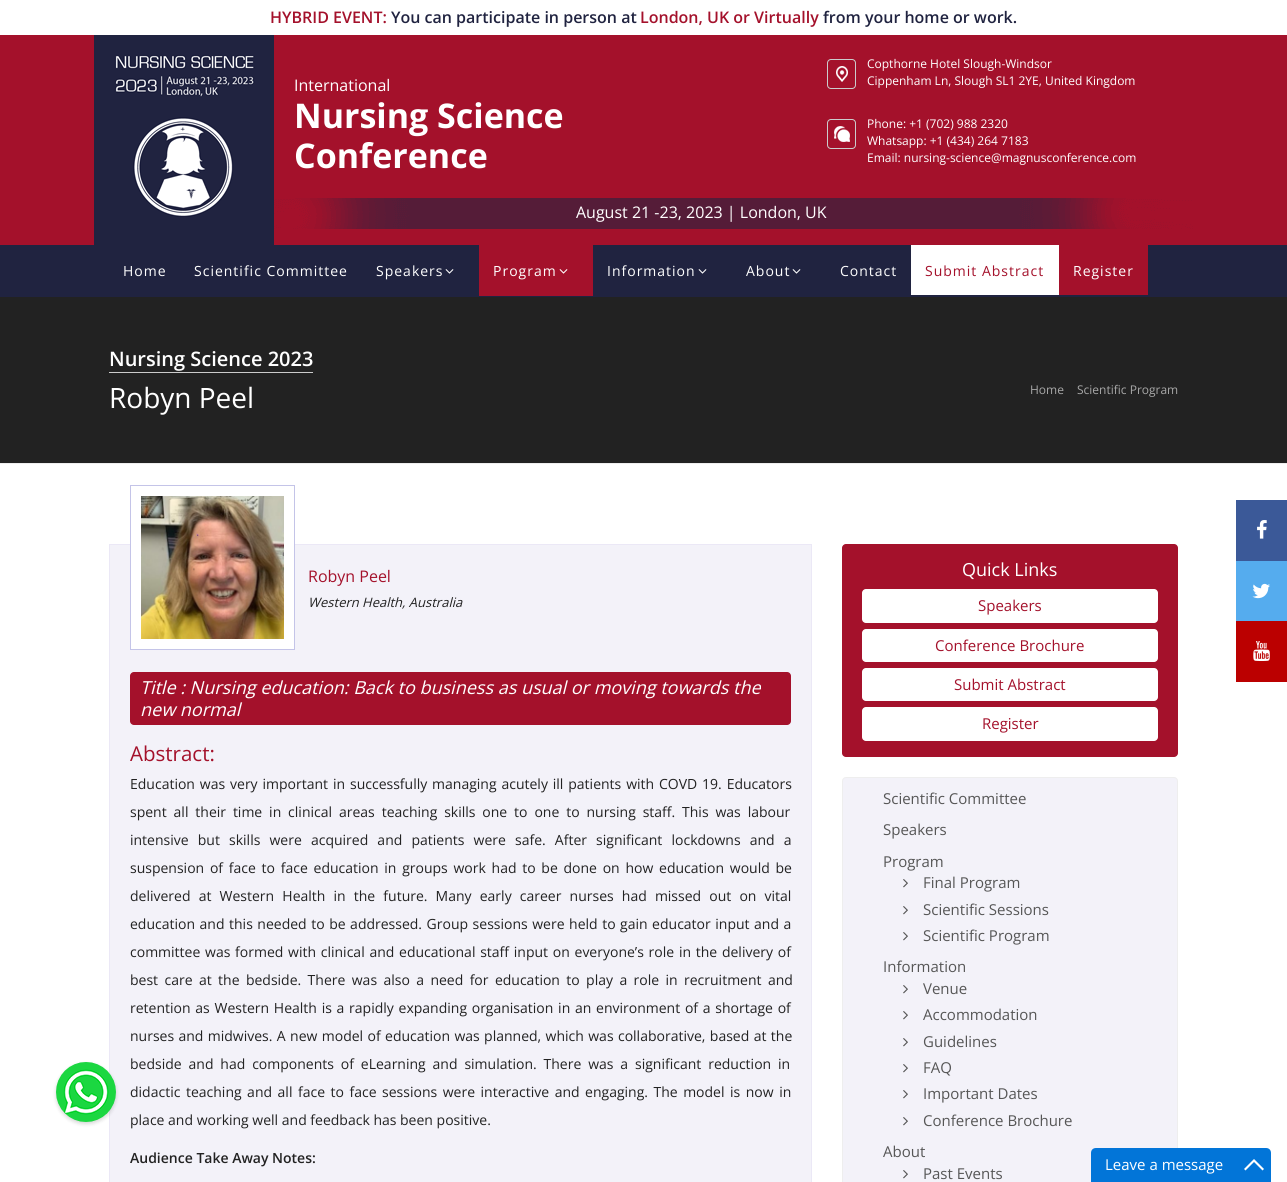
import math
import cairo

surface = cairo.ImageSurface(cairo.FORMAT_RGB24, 1287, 1182)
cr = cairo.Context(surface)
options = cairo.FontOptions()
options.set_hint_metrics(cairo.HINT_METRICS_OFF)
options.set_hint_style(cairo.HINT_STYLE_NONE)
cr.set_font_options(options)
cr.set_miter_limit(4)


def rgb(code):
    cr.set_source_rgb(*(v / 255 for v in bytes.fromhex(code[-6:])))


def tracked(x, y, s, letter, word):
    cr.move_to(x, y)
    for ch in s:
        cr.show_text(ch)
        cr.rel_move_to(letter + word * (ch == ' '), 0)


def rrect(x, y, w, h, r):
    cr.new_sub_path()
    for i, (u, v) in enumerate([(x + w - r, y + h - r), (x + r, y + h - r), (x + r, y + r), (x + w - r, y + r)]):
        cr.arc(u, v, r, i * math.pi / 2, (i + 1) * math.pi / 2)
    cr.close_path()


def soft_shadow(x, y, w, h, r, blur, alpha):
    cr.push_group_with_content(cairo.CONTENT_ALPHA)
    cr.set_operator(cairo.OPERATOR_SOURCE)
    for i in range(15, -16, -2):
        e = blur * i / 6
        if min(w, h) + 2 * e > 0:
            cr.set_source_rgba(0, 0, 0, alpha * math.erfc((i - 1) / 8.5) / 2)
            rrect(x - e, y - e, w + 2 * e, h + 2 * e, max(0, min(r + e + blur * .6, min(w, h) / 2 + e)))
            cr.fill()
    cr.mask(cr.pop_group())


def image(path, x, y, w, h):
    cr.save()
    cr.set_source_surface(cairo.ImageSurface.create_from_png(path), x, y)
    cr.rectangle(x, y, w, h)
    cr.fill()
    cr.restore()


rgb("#ffffff")
cr.paint()
rgb("#a4112b")
cr.rectangle(0, 35, 1287, 210)
cr.fill()
image("img/1.png", 274, 198, 919, 31)
image("img/2.png", 94, 35, 180, 210)
image("img/3.png", 827, 59, 29, 30)
image("img/4.png", 827, 119, 29, 30)
rgb("#202340")
cr.rectangle(0, 245, 1287, 52)
cr.fill()
image("img/5.png", 445, 269, 9, 5)
rgb("#a4112b")
cr.rectangle(479, 245, 114, 51)
cr.fill()
image("img/6.png", 559, 269, 9, 5)
image("img/5.png", 698, 269, 9, 5)
image("img/5.png", 792, 269, 9, 5)
for x, y, w, h, color in [
    (911, 245, 148, 50, "#ffffff"),
    (1059, 245, 89, 50, "#a4112b"),
    (0, 297, 1287, 166, "#222222"),
    (0, 463, 1287, 1, "#eeeeee"),
    (109, 372, 204, 1, "#cccccc"),
]:
    rgb(color)
    cr.rectangle(x, y, w, h)
    cr.fill()
rgb("#f3f2f9")
cr.rectangle(109.5, 544.5, 702, 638)
cr.fill_preserve()
rgb("#ebe8f6")
cr.set_line_width(1)
cr.stroke()
rgb("#000000")
soft_shadow(56, 1064, 60, 60, 30, 2, 0.16)
image("img/7.png", 56, 1062, 60, 60)
rgb("#ffffff")
cr.rectangle(131, 544, 163, 105)
cr.fill()
cr.rectangle(130.5, 485.5, 164, 164)
rgb("#c4c4e8")
cr.stroke()
image("img/8.png", 141, 496, 143, 143)
rgb("#a4112b")
rrect(130, 672, 661, 53, 4)
cr.fill()
rrect(842, 544, 336, 213, 4)
cr.fill()
rgb("#ffffff")
rrect(862, 589, 296, 34, 4)
cr.fill()
rrect(862, 629, 296, 33, 4)
cr.fill()
rrect(862, 668, 296, 33, 4)
cr.fill()
rrect(862, 707, 296, 34, 4)
cr.fill()
rgb("#f3f2f9")
rrect(842.5, 777.5, 335, 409, 3.5)
cr.fill_preserve()
rgb("#eeeeee")
cr.stroke()
image("img/9.png", 903, 879, 5, 9)
image("img/9.png", 903, 906, 5, 9)
image("img/9.png", 903, 932, 5, 9)
image("img/9.png", 903, 985, 5, 9)
image("img/9.png", 903, 1011, 5, 9)
image("img/9.png", 903, 1038, 5, 9)
image("img/9.png", 903, 1064, 5, 9)
image("img/9.png", 903, 1090, 5, 9)
image("img/9.png", 903, 1117, 5, 9)
image("img/9.png", 903, 1170, 5, 9)
rgb("#3b5998")
cr.rectangle(1236, 500, 51, 61)
cr.fill()
image("img/10.png", 1257, 520, 10, 19)
rgb("#55acee")
cr.rectangle(1236, 561, 51, 60)
cr.fill()
image("img/11.png", 1252, 583, 18, 16)
rgb("#bb0000")
cr.rectangle(1236, 621, 51, 61)
cr.fill()
image("img/12.png", 1253, 641, 17, 20)
rgb("#0275d8")
cr.new_path()
cr.move_to(1096, 1148)
cr.line_to(1266, 1148)
cr.curve_to(1269, 1148, 1271, 1150, 1271, 1153)
cr.line_to(1271, 1182)
cr.line_to(1091, 1182)
cr.line_to(1091, 1153)
cr.curve_to(1091, 1150, 1093, 1148, 1096, 1148)
cr.close_path()
cr.fill()
rgb("#ffffff")
cr.new_path()
cr.move_to(1254, 1159)
cr.line_to(1264, 1169)
cr.line_to(1262.5, 1170.5)
cr.line_to(1254, 1162)
cr.line_to(1245.5, 1170.5)
cr.line_to(1244, 1169)
cr.close_path()
cr.fill()
cr.select_font_face("Open Sans SemiBold")
cr.set_font_size(16)
rgb("#a4112b")
cr.move_to(270, 23)
cr.show_text("HYBRID EVENT:")
rgb("#202340")
cr.move_to(391, 23)
cr.show_text("You can participate in person at")
rgb("#a4112b")
cr.move_to(640, 23)
cr.show_text("London, UK or Virtually")
rgb("#202340")
cr.move_to(823, 23)
cr.show_text("from your home or work.")
cr.select_font_face("Open Sans")
rgb("#ffffff")
cr.move_to(294, 91)
cr.show_text("International")
cr.select_font_face("Open Sans", cairo.FONT_SLANT_NORMAL, cairo.FONT_WEIGHT_BOLD)
cr.set_font_size(34)
cr.move_to(294, 128)
cr.show_text("Nursing Science")
cr.move_to(294, 168)
cr.show_text("Conference")
cr.select_font_face("Open Sans")
cr.set_font_size(12)
for x, y, s in [
    (867, 68, "Copthorne Hotel Slough-Windsor"),
    (867, 85, "Cippenham Ln, Slough SL1 2YE, United Kingdom"),
    (867, 128, "Phone: +1 (702) 988 2320"),
    (867, 145, "Whatsapp: +1 (434) 264 7183"),
    (867, 162, "Email: nursing-science@magnusconference.com"),
]:
    cr.move_to(x, y)
    cr.show_text(s)
cr.set_font_size(16)
cr.move_to(576, 218)
cr.show_text("August 21 -23, 2023 | London, UK")
cr.set_font_size(14)
for x, y, s in [
    (123, 276, "Home"),
    (194, 276, "Scientific Committee"),
    (376, 276, "Speakers"),
    (493, 276, "Program"),
    (607, 276, "Information"),
    (746, 276, "About"),
    (840, 276, "Contact"),
]:
    tracked(x, y, s, 1, 0)
rgb("#a4112b")
tracked(925, 276, "Submit Abstract", 1, 0)
rgb("#ffffff")
tracked(1073, 276, "Register", 1, 0)
cr.select_font_face("Open Sans SemiBold")
cr.set_font_size(20)
cr.move_to(109, 366)
cr.show_text("Nursing Science 2023")
cr.select_font_face("Open Sans")
cr.set_font_size(28)
cr.move_to(109, 408)
cr.show_text("Robyn Peel")
cr.set_font_size(12)
rgb("#a7a7a7")
cr.move_to(1030, 394)
cr.show_text("Home")
cr.move_to(1077, 394)
cr.show_text("Scientific Program")
cr.set_font_size(16)
rgb("#a4112b")
cr.move_to(308, 582)
cr.show_text("Robyn Peel")
cr.select_font_face("Open Sans", cairo.FONT_SLANT_ITALIC)
cr.set_font_size(13)
rgb("#222222")
cr.move_to(308, 607)
cr.show_text("Western Health, Australia")
cr.set_font_size(18)
rgb("#ffffff")
cr.move_to(140, 694)
cr.show_text("Title : Nursing education: Back to business as usual or moving towards the")
cr.move_to(140, 716)
cr.show_text("new normal")
cr.select_font_face("Open Sans")
cr.set_font_size(20.5)
rgb("#a4112b")
cr.move_to(130, 761)
cr.show_text("Abstract:")
cr.set_font_size(14)
rgb("#222222")
tracked(130, 789, "Education was very important in successfully managing acutely ill patients with COVD 19. Educators", 0, 1.25)
tracked(130, 817, "spent all their time in clinical areas teaching skills one to one to nursing staff. This was labour", 0, 3.25)
tracked(130, 845, "intensive but skills were acquired and patients were safe. After significant lockdowns and a", 0, 5.5)
tracked(130, 873, "suspension of face to face education in groups work had to be done on how education would be", 0, 2.1)
tracked(130, 901, "delivered at Western Health in the future. Many early career nurses had missed out on vital", 0, 4.5)
tracked(130, 929, "education and this needed to be addressed. Group sessions were held to gain educator input and a", 0, 0.9)
tracked(130, 957, "committee was formed with clinical and educational staff input on everyone’s role in the delivery of", 0, 1.1)
tracked(130, 985, "best care at the bedside. There was also a need for education to play a role in recruitment and", 0, 2.75)
tracked(130, 1013, "retention as Western Health is a rapidly expanding organisation in an environment of a shortage of", 0, 1.1)
tracked(130, 1041, "nurses and midwives. A new model of education was planned, which was collaborative, based at the", 0, 0.75)
tracked(130, 1069, "bedside and had components of eLearning and simulation. There was a significant reduction in", 0, 3.25)
tracked(130, 1097, "didactic teaching and all face to face sessions were interactive and engaging. The model is now in", 0, 1.9)
cr.move_to(130, 1125)
cr.show_text("place and working well and feedback has been positive.")
cr.select_font_face("Open Sans SemiBold")
cr.move_to(130, 1163)
cr.show_text("Audience Take Away Notes:")
cr.select_font_face("Open Sans")
cr.set_font_size(18)
rgb("#ffffff")
cr.move_to(962, 576)
cr.show_text("Quick Links")
cr.set_font_size(15)
rgb("#a4112b")
for x, y, s in [
    (978, 611, "Speakers"),
    (935, 651, "Conference Brochure"),
    (954, 690, "Submit Abstract"),
    (982, 729, "Register"),
]:
    cr.move_to(x, y)
    cr.show_text(s)
rgb("#565656")
for x, y, s in [
    (883, 804, "Scientific Committee"),
    (883, 835, "Speakers"),
    (883, 867, "Program"),
    (923, 888, "Final Program"),
    (923, 915, "Scientific Sessions"),
    (923, 941, "Scientific Program"),
    (883, 972, "Information"),
    (923, 994, "Venue"),
    (923, 1020, "Accommodation"),
    (923, 1047, "Guidelines"),
    (923, 1073, "FAQ"),
    (923, 1099, "Important Dates"),
    (923, 1126, "Conference Brochure"),
    (883, 1157, "About"),
    (923, 1179, "Past Events"),
]:
    cr.move_to(x, y)
    cr.show_text(s)
rgb("#ffffff")
cr.move_to(1105, 1170)
cr.show_text("Leave a message")
surface.write_to_png("page.png")
